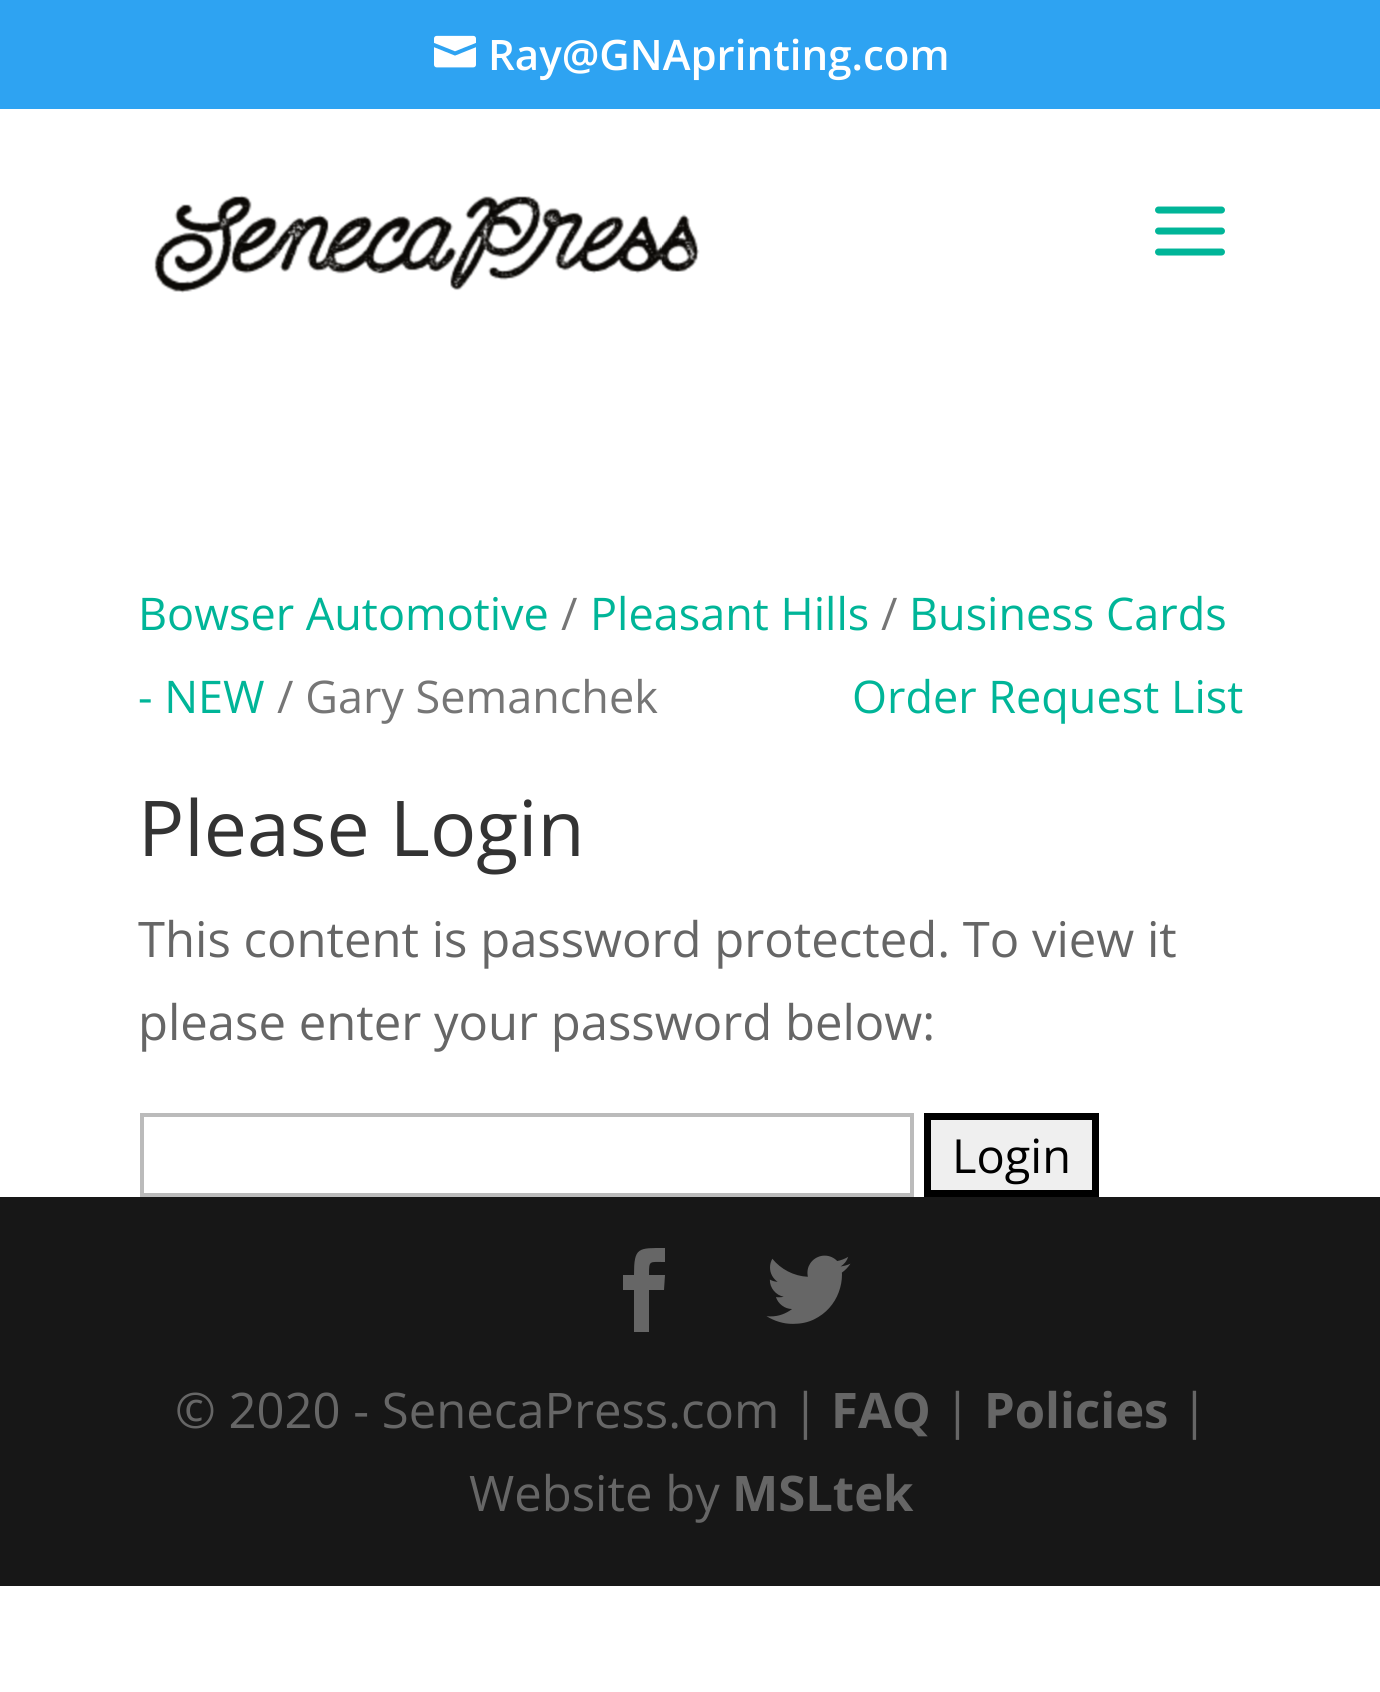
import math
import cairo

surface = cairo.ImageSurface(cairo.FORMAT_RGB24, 1380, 1692)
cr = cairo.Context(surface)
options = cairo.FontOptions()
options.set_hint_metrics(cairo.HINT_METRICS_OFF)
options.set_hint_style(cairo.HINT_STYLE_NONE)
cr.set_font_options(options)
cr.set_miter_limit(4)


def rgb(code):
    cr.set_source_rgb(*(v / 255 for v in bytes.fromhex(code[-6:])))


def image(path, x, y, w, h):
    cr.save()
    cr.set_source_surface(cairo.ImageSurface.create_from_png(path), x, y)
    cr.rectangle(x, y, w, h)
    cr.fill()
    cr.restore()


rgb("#ffffff")
cr.paint()
rgb("#2ea3f2")
cr.rectangle(0, 0, 1380, 109)
cr.fill()
image("img/1.png", 434, 35, 42, 33)
image("img/2.png", 154, 195, 546, 98)
image("img/3.png", 1155, 206, 70, 50)
cr.rectangle(142, 1115, 770, 80)
rgb("#bbbbbb")
cr.set_line_width(4)
cr.stroke()
rgb("#efefef")
cr.rectangle(927.5, 1116.5, 168, 77)
cr.fill_preserve()
rgb("#000000")
cr.set_line_width(7)
cr.stroke()
rgb("#171717")
cr.rectangle(0, 1197, 1380, 389)
cr.fill()
rgb("#666666")
cr.new_path()
cr.move_to(634, 1332)
cr.line_to(649, 1332)
cr.line_to(649, 1290)
cr.line_to(664, 1290)
cr.line_to(665, 1275)
cr.line_to(649, 1275)
cr.curve_to(649, 1260, 649, 1262, 665, 1262)
cr.line_to(665, 1248)
cr.curve_to(638, 1248, 634, 1247, 634, 1275)
cr.line_to(623, 1275)
cr.line_to(623, 1290)
cr.line_to(634, 1290)
cr.close_path()
cr.fill()
image("img/4.png", 766, 1255, 85, 69)
cr.select_font_face("Open Sans SemiBold")
cr.set_font_size(42)
rgb("#ffffff")
cr.move_to(488, 70)
cr.show_text("Ray@GNAprinting.com")
cr.select_font_face("Open Sans")
cr.set_font_size(45)
rgb("#00b598")
cr.move_to(138, 630)
cr.show_text("Bowser Automotive")
rgb("#767676")
cr.move_to(561, 630)
cr.show_text("/")
rgb("#00b598")
cr.move_to(590, 630)
cr.show_text("Pleasant Hills")
rgb("#767676")
cr.move_to(881, 630)
cr.show_text("/")
rgb("#00b598")
cr.move_to(909, 630)
cr.show_text("Business Cards")
cr.move_to(138, 713)
cr.show_text("- NEW")
rgb("#767676")
cr.move_to(277, 713)
cr.show_text("/ Gary Semanchek")
rgb("#00b598")
cr.move_to(852, 713)
cr.show_text("Order Request List")
cr.set_font_size(77)
rgb("#333333")
cr.move_to(138, 856)
cr.show_text("Please Login")
cr.set_font_size(49)
rgb("#666666")
cr.move_to(138, 957)
cr.show_text("This content is password protected. To view it")
cr.move_to(138, 1040)
cr.show_text("please enter your password below:")
cr.set_font_size(47)
rgb("#000000")
cr.move_to(952, 1173)
cr.show_text("Login")
cr.set_font_size(49)
rgb("#666666")
cr.move_to(175, 1428)
cr.show_text("© 2020 - SenecaPress.com |")
cr.select_font_face("Open Sans", cairo.FONT_SLANT_NORMAL, cairo.FONT_WEIGHT_BOLD)
cr.move_to(831, 1428)
cr.show_text("FAQ")
cr.select_font_face("Open Sans")
cr.move_to(944, 1428)
cr.show_text("|")
cr.select_font_face("Open Sans", cairo.FONT_SLANT_NORMAL, cairo.FONT_WEIGHT_BOLD)
cr.move_to(984, 1428)
cr.show_text("Policies")
cr.select_font_face("Open Sans")
cr.move_to(1181, 1428)
cr.show_text("|")
cr.move_to(469, 1511)
cr.show_text("Website by")
cr.select_font_face("Open Sans", cairo.FONT_SLANT_NORMAL, cairo.FONT_WEIGHT_BOLD)
cr.move_to(732, 1511)
cr.show_text("MSLtek")
surface.write_to_png("page.png")
